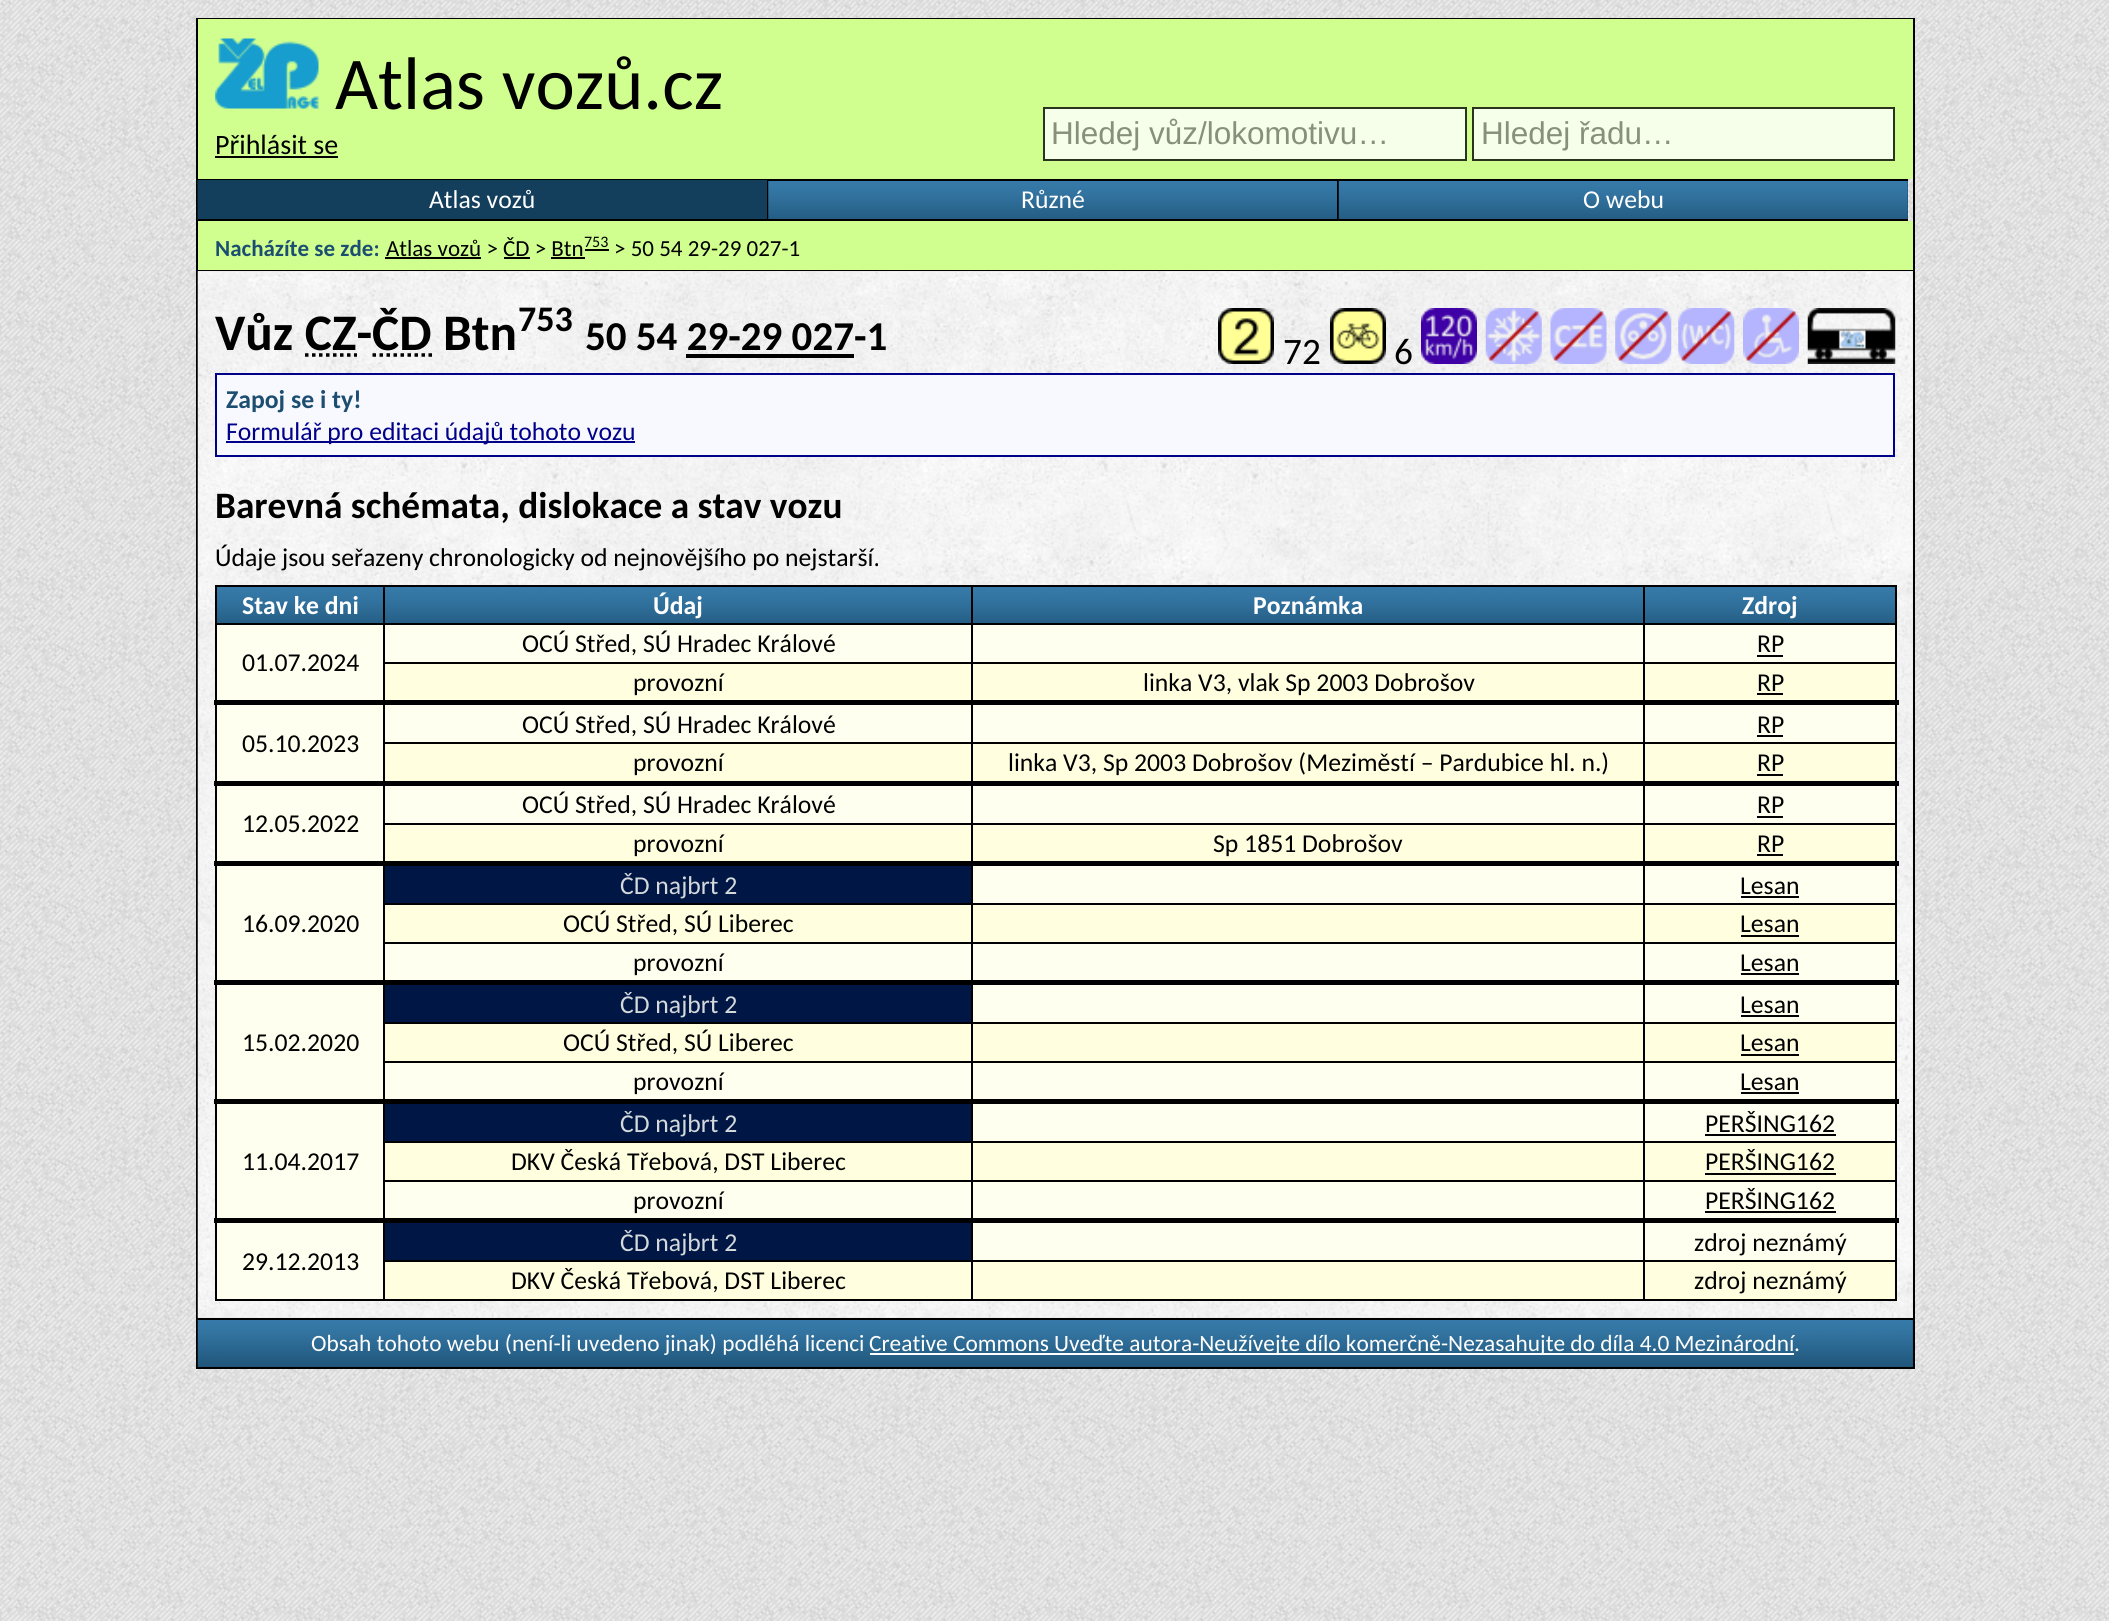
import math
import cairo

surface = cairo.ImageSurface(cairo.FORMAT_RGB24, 2109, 1621)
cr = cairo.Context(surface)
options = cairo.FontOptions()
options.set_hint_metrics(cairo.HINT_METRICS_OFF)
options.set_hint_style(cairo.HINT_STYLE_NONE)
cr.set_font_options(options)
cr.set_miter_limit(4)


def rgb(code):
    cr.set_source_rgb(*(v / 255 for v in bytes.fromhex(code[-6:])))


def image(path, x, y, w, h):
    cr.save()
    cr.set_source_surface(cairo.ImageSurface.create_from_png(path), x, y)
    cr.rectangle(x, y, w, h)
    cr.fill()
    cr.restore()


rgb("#ffffff")
cr.paint()
image("img/1.png", 0, 0, 2109, 1621)
cr.rectangle(197, 19, 1717, 1349)
rgb("#000000")
cr.stroke()
rgb("#d0ff90")
cr.rectangle(198, 19, 1715, 160)
cr.fill()
image("img/2.png", 215, 38, 104, 71)
rgb("#000000")
cr.rectangle(215, 156, 123, 2)
cr.fill()
rgb("#f6ffe9")
cr.rectangle(1044, 108, 422, 52)
cr.fill_preserve()
rgb("#2a331d")
cr.stroke()
rgb("#f6ffe9")
cr.rectangle(1473, 108, 421, 52)
cr.fill_preserve()
rgb("#2a331d")
cr.stroke()
image("img/3.png", 197, 180, 1, 41)
for x, y, w, h, color in [
    (198, 179, 570, 1, "#000000"),
    (767, 179, 2, 42, "#000000"),
    (198, 219, 570, 2, "#000000"),
    (198, 180, 569, 39, "#133f5d"),
]:
    rgb(color)
    cr.rectangle(x, y, w, h)
    cr.fill()
image("img/4.png", 768, 181, 569, 38)
for x, y, w, h, color in [
    (768, 179, 571, 2, "#000000"),
    (1337, 179, 2, 42, "#000000"),
    (768, 219, 571, 2, "#000000"),
    (1907, 181, 1, 38, "#1c4e71"),
]:
    rgb(color)
    cr.rectangle(x, y, w, h)
    cr.fill()
image("img/5.png", 1338, 180, 570, 41)
for x, y, w, h, color in [
    (1339, 179, 569, 2, "#000000"),
    (1339, 219, 569, 2, "#000000"),
    (198, 221, 1715, 49, "#d0ff90"),
    (198, 270, 1715, 1, "#000000"),
    (385, 257, 96, 2, "#000000"),
    (551, 257, 34, 2, "#000000"),
    (585, 249, 24, 2, "#000000"),
    (504, 257, 26, 2, "#000000"),
    (198, 271, 1715, 1047, "#dddddd"),
]:
    rgb(color)
    cr.rectangle(x, y, w, h)
    cr.fill()
image("img/6.png", 197, 271, 1716, 1047)
cr.new_path()
cr.move_to(305, 355)
cr.line_to(357, 355)
rgb("#000000")
cr.set_line_width(3.5)
cr.set_dash([3.5, 3.5])
cr.stroke()
cr.new_path()
cr.move_to(372.5, 355)
cr.line_to(432, 355)
cr.stroke()
cr.rectangle(686, 354, 168, 4)
cr.fill()
image("img/7.png", 1218, 308, 56, 56)
image("img/8.png", 1330, 308, 56, 56)
image("img/9.png", 1421, 308, 56, 56)
image("img/10.png", 1485, 308, 57, 56)
image("img/11.png", 1550, 308, 57, 56)
image("img/12.png", 1615, 308, 57, 56)
image("img/13.png", 1678, 308, 57, 56)
image("img/14.png", 1743, 308, 56, 56)
image("img/15.png", 1807, 308, 89, 56)
rgb("#f8f8ff")
cr.rectangle(216, 374, 1678, 82)
cr.fill_preserve()
rgb("#00008b")
cr.set_line_width(2)
cr.set_dash([])
cr.stroke()
cr.rectangle(226, 441, 409, 2)
cr.fill()
image("img/16.png", 217, 587, 166, 36)
for x, y, w, h, color in [
    (1643, 585, 254, 2, "#000000"),
    (1643, 623, 254, 2, "#000000"),
    (1643, 662, 254, 2, "#000000"),
    (1643, 742, 254, 2, "#000000"),
    (1643, 823, 254, 2, "#000000"),
    (1643, 903, 254, 2, "#000000"),
    (1643, 942, 254, 2, "#000000"),
    (1643, 1022, 254, 2, "#000000"),
    (1643, 1061, 254, 2, "#000000"),
    (1643, 1141, 254, 2, "#000000"),
    (1643, 1180, 254, 2, "#000000"),
    (1643, 1260, 254, 2, "#000000"),
    (215, 1299, 1682, 2, "#000000"),
    (1643, 1260, 2, 40, "#000000"),
    (971, 1260, 674, 2, "#000000"),
    (1643, 1220, 2, 42, "#000000"),
    (1643, 1180, 2, 42, "#000000"),
    (971, 1180, 674, 2, "#000000"),
    (1643, 1141, 2, 40, "#000000"),
    (971, 1141, 674, 2, "#000000"),
    (1643, 1101, 2, 42, "#000000"),
    (1643, 1061, 2, 42, "#000000"),
    (971, 1061, 674, 2, "#000000"),
    (1643, 1022, 2, 40, "#000000"),
    (971, 1022, 674, 2, "#000000"),
    (1643, 982, 2, 42, "#000000"),
    (1643, 942, 2, 42, "#000000"),
    (971, 942, 674, 2, "#000000"),
    (1643, 903, 2, 40, "#000000"),
    (971, 903, 674, 2, "#000000"),
    (1643, 863, 2, 42, "#000000"),
    (1643, 823, 2, 42, "#000000"),
    (971, 823, 674, 2, "#000000"),
    (1643, 782, 2, 42, "#000000"),
    (1643, 742, 2, 42, "#000000"),
    (971, 742, 674, 2, "#000000"),
    (1643, 702, 2, 42, "#000000"),
    (1643, 662, 2, 42, "#000000"),
    (971, 662, 674, 2, "#000000"),
    (1643, 623, 2, 40, "#000000"),
    (971, 623, 674, 2, "#000000"),
    (1643, 585, 2, 40, "#000000"),
    (971, 585, 674, 2, "#000000"),
    (971, 1260, 2, 40, "#000000"),
    (383, 1260, 590, 2, "#000000"),
    (971, 1220, 2, 42, "#000000"),
    (971, 1180, 2, 42, "#000000"),
    (383, 1180, 590, 2, "#000000"),
    (971, 1141, 2, 40, "#000000"),
    (383, 1141, 590, 2, "#000000"),
    (971, 1101, 2, 42, "#000000"),
    (971, 1061, 2, 42, "#000000"),
    (383, 1061, 590, 2, "#000000"),
    (971, 1022, 2, 40, "#000000"),
    (383, 1022, 590, 2, "#000000"),
    (971, 982, 2, 42, "#000000"),
    (971, 942, 2, 42, "#000000"),
    (383, 942, 590, 2, "#000000"),
    (971, 903, 2, 40, "#000000"),
    (383, 903, 590, 2, "#000000"),
    (971, 863, 2, 42, "#000000"),
    (971, 823, 2, 42, "#000000"),
    (383, 823, 590, 2, "#000000"),
    (971, 782, 2, 42, "#000000"),
    (971, 742, 2, 42, "#000000"),
    (383, 742, 590, 2, "#000000"),
    (971, 702, 2, 42, "#000000"),
    (971, 662, 2, 42, "#000000"),
    (383, 662, 590, 2, "#000000"),
    (971, 623, 2, 40, "#000000"),
    (383, 623, 590, 2, "#000000"),
    (971, 585, 2, 40, "#000000"),
    (383, 585, 590, 2, "#000000"),
    (383, 1220, 2, 80, "#000000"),
    (383, 1180, 2, 42, "#000000"),
    (383, 1101, 2, 80, "#000000"),
    (383, 1061, 2, 42, "#000000"),
    (383, 982, 2, 80, "#000000"),
    (383, 942, 2, 42, "#000000"),
    (383, 863, 2, 80, "#000000"),
    (383, 782, 2, 83, "#000000"),
    (383, 702, 2, 82, "#000000"),
    (383, 662, 2, 42, "#000000"),
    (383, 623, 2, 40, "#000000"),
    (215, 623, 170, 2, "#000000"),
    (383, 585, 2, 40, "#000000"),
    (215, 585, 170, 2, "#000000"),
    (215, 702, 2, 598, "#000000"),
    (215, 623, 2, 81, "#000000"),
    (215, 585, 2, 40, "#000000"),
]:
    rgb(color)
    cr.rectangle(x, y, w, h)
    cr.fill()
image("img/17.png", 385, 587, 586, 36)
image("img/18.png", 973, 587, 670, 36)
image("img/19.png", 1645, 587, 250, 36)
for x, y, w, h, color in [
    (1895, 1220, 2, 80, "#000000"),
    (1895, 1180, 2, 42, "#000000"),
    (1895, 1101, 2, 80, "#000000"),
    (1895, 1061, 2, 42, "#000000"),
    (1895, 982, 2, 80, "#000000"),
    (1895, 942, 2, 42, "#000000"),
    (1895, 863, 2, 80, "#000000"),
    (1895, 782, 2, 83, "#000000"),
    (1895, 702, 2, 82, "#000000"),
    (1895, 662, 2, 42, "#000000"),
    (1895, 623, 2, 40, "#000000"),
    (1895, 585, 2, 40, "#000000"),
    (214, 700, 1685, 5, "#000000"),
    (385, 625, 586, 37, "#fffff0"),
    (973, 625, 670, 37, "#fffff0"),
    (1645, 625, 250, 37, "#fffff0"),
    (1757, 655, 26, 2, "#000000"),
    (217, 625, 166, 75, "#fffff0"),
    (385, 664, 586, 36, "#ffffe0"),
    (973, 664, 670, 36, "#ffffe0"),
    (1645, 664, 250, 36, "#ffffe0"),
    (1757, 693, 26, 2, "#000000"),
    (214, 781, 1685, 5, "#000000"),
    (385, 705, 586, 37, "#fffff0"),
    (973, 705, 670, 37, "#fffff0"),
    (1645, 705, 250, 37, "#fffff0"),
    (1757, 735, 26, 2, "#000000"),
    (217, 705, 166, 76, "#fffff0"),
    (385, 744, 586, 37, "#ffffe0"),
    (973, 744, 670, 37, "#ffffe0"),
    (1645, 744, 250, 37, "#ffffe0"),
    (1757, 774, 26, 2, "#000000"),
    (214, 861, 1685, 5, "#000000"),
    (385, 786, 586, 37, "#fffff0"),
    (973, 786, 670, 37, "#fffff0"),
    (1645, 786, 250, 37, "#fffff0"),
    (1757, 816, 26, 2, "#000000"),
    (217, 786, 166, 75, "#fffff0"),
    (385, 825, 586, 36, "#ffffe0"),
    (973, 825, 670, 36, "#ffffe0"),
    (1645, 825, 250, 36, "#ffffe0"),
    (1757, 854, 26, 2, "#000000"),
    (214, 980, 1685, 5, "#000000"),
    (385, 866, 586, 37, "#001745"),
    (973, 866, 670, 37, "#fffff0"),
    (1645, 866, 250, 37, "#fffff0"),
    (1741, 896, 58, 2, "#000000"),
    (217, 866, 166, 114, "#fffff0"),
    (385, 905, 586, 37, "#ffffe0"),
    (973, 905, 670, 37, "#ffffe0"),
    (1645, 905, 250, 37, "#ffffe0"),
    (1741, 935, 58, 2, "#000000"),
    (385, 944, 586, 36, "#fffff0"),
    (973, 944, 670, 36, "#fffff0"),
    (1645, 944, 250, 36, "#fffff0"),
    (1741, 973, 58, 2, "#000000"),
    (214, 1099, 1685, 5, "#000000"),
    (385, 985, 586, 37, "#001745"),
    (973, 985, 670, 37, "#fffff0"),
    (1645, 985, 250, 37, "#fffff0"),
    (1741, 1015, 58, 2, "#000000"),
    (217, 985, 166, 114, "#fffff0"),
    (385, 1024, 586, 37, "#ffffe0"),
    (973, 1024, 670, 37, "#ffffe0"),
    (1645, 1024, 250, 37, "#ffffe0"),
    (1741, 1054, 58, 2, "#000000"),
    (385, 1063, 586, 36, "#fffff0"),
    (973, 1063, 670, 36, "#fffff0"),
    (1645, 1063, 250, 36, "#fffff0"),
    (1741, 1092, 58, 2, "#000000"),
    (214, 1218, 1685, 5, "#000000"),
    (385, 1104, 586, 37, "#001745"),
    (973, 1104, 670, 37, "#fffff0"),
    (1645, 1104, 250, 37, "#fffff0"),
    (1705, 1134, 131, 2, "#000000"),
    (217, 1104, 166, 114, "#fffff0"),
    (385, 1143, 586, 37, "#ffffe0"),
    (973, 1143, 670, 37, "#ffffe0"),
    (1645, 1143, 250, 37, "#ffffe0"),
    (1705, 1173, 131, 2, "#000000"),
    (385, 1182, 586, 36, "#fffff0"),
    (973, 1182, 670, 36, "#fffff0"),
    (1645, 1182, 250, 36, "#fffff0"),
    (1705, 1211, 131, 2, "#000000"),
    (385, 1223, 586, 37, "#001745"),
    (973, 1223, 670, 37, "#fffff0"),
    (1645, 1223, 250, 37, "#fffff0"),
    (217, 1223, 166, 76, "#fffff0"),
    (385, 1262, 586, 37, "#ffffe0"),
    (973, 1262, 670, 37, "#ffffe0"),
    (1645, 1262, 250, 37, "#ffffe0"),
    (198, 1320, 1715, 47, "#1c4e71"),
]:
    rgb(color)
    cr.rectangle(x, y, w, h)
    cr.fill()
image("img/20.png", 197, 1319, 1716, 48)
rgb("#000000")
cr.rectangle(198, 1318, 1715, 2)
cr.fill()
rgb("#ffffff")
cr.rectangle(870, 1353, 924, 2)
cr.fill()
cr.select_font_face("Carlito")
cr.set_font_size(74.5)
rgb("#000000")
cr.move_to(335, 109)
cr.show_text("Atlas vozů.cz")
cr.set_font_size(28)
cr.move_to(215, 154)
cr.show_text("Přihlásit se")
cr.select_font_face("Liberation Sans")
cr.set_font_size(31.5)
rgb("#87917a")
cr.move_to(1051, 144)
cr.show_text("Hledej vůz/lokomotivu…")
cr.move_to(1481, 144)
cr.show_text("Hledej řadu…")
cr.select_font_face("Carlito")
cr.set_font_size(25.7)
rgb("#ffffff")
for x, y, s in [
    (429, 208, "Atlas vozů"),
    (1021, 208, "Různé"),
    (1583, 208, "O webu"),
]:
    cr.move_to(x, y)
    cr.show_text(s)
cr.select_font_face("Carlito", cairo.FONT_SLANT_NORMAL, cairo.FONT_WEIGHT_BOLD)
cr.set_font_size(23)
rgb("#1c4e71")
cr.move_to(215, 256)
cr.show_text("Nacházíte se zde:")
cr.select_font_face("Carlito")
rgb("#000000")
cr.move_to(386, 256)
cr.show_text("Atlas vozů > ČD > Btn")
cr.set_font_size(16)
cr.move_to(584, 247)
cr.show_text("753")
cr.set_font_size(23)
cr.move_to(614, 256)
cr.show_text("> 50 54 29-29 027-1")
cr.select_font_face("Carlito", cairo.FONT_SLANT_NORMAL, cairo.FONT_WEIGHT_BOLD)
cr.set_font_size(51.25)
cr.move_to(215, 350)
cr.show_text("Vůz CZ-ČD Btn")
cr.set_font_size(36)
cr.move_to(518, 331)
cr.show_text("753")
cr.set_font_size(41)
cr.move_to(585, 350)
cr.show_text("50 54 29-29 027-1")
cr.select_font_face("Carlito")
cr.set_font_size(37.3)
cr.move_to(1283, 364)
cr.show_text("72")
cr.move_to(1394, 364)
cr.show_text("6")
cr.select_font_face("Carlito", cairo.FONT_SLANT_NORMAL, cairo.FONT_WEIGHT_BOLD)
cr.set_font_size(25.7)
rgb("#1c4e71")
cr.move_to(226, 408)
cr.show_text("Zapoj se i ty!")
cr.select_font_face("Carlito")
rgb("#00008b")
cr.move_to(226, 440)
cr.show_text("Formulář pro editaci údajů tohoto vozu")
cr.select_font_face("Carlito", cairo.FONT_SLANT_NORMAL, cairo.FONT_WEIGHT_BOLD)
cr.set_font_size(37.3)
rgb("#000000")
cr.move_to(215, 518)
cr.show_text("Barevná schémata, dislokace a stav vozu")
cr.select_font_face("Carlito")
cr.set_font_size(25.7)
cr.move_to(215, 566)
cr.show_text("Údaje jsou seřazeny chronologicky od nejnovějšího po nejstarší.")
cr.select_font_face("Carlito", cairo.FONT_SLANT_NORMAL, cairo.FONT_WEIGHT_BOLD)
rgb("#ffffff")
for x, y, s in [
    (242, 614, "Stav ke dni"),
    (653, 614, "Údaj"),
    (1253, 614, "Poznámka"),
    (1742, 614, "Zdroj"),
]:
    cr.move_to(x, y)
    cr.show_text(s)
cr.select_font_face("Carlito")
rgb("#000000")
for x, y, s in [
    (522, 652, "OCÚ Střed, SÚ Hradec Králové"),
    (1757, 652, "RP"),
    (242, 671, "01.07.2024"),
    (633, 691, "provozní"),
    (1143, 691, "linka V3, vlak Sp 2003 Dobrošov"),
    (1757, 691, "RP"),
    (522, 733, "OCÚ Střed, SÚ Hradec Králové"),
    (1757, 733, "RP"),
    (242, 752, "05.10.2023"),
    (633, 771, "provozní"),
    (1008, 771, "linka V3, Sp 2003 Dobrošov (Meziměstí – Pardubice hl. n.)"),
    (1757, 771, "RP"),
    (522, 813, "OCÚ Střed, SÚ Hradec Králové"),
    (1757, 813, "RP"),
    (242, 832, "12.05.2022"),
    (633, 852, "provozní"),
    (1213, 852, "Sp 1851 Dobrošov"),
    (1757, 852, "RP"),
]:
    cr.move_to(x, y)
    cr.show_text(s)
rgb("#d4d9db")
cr.move_to(620, 894)
cr.show_text("ČD najbrt 2")
rgb("#000000")
for x, y, s in [
    (1740, 894, "Lesan"),
    (242, 932, "16.09.2020"),
    (563, 932, "OCÚ Střed, SÚ Liberec"),
    (1740, 932, "Lesan"),
    (633, 971, "provozní"),
    (1740, 971, "Lesan"),
]:
    cr.move_to(x, y)
    cr.show_text(s)
rgb("#d4d9db")
cr.move_to(620, 1013)
cr.show_text("ČD najbrt 2")
rgb("#000000")
for x, y, s in [
    (1740, 1013, "Lesan"),
    (242, 1051, "15.02.2020"),
    (563, 1051, "OCÚ Střed, SÚ Liberec"),
    (1740, 1051, "Lesan"),
    (633, 1090, "provozní"),
    (1740, 1090, "Lesan"),
]:
    cr.move_to(x, y)
    cr.show_text(s)
rgb("#d4d9db")
cr.move_to(620, 1132)
cr.show_text("ČD najbrt 2")
rgb("#000000")
for x, y, s in [
    (1705, 1132, "PERŠING162"),
    (242, 1170, "11.04.2017"),
    (511, 1170, "DKV Česká Třebová, DST Liberec"),
    (1705, 1170, "PERŠING162"),
    (633, 1209, "provozní"),
    (1705, 1209, "PERŠING162"),
]:
    cr.move_to(x, y)
    cr.show_text(s)
rgb("#d4d9db")
cr.move_to(620, 1251)
cr.show_text("ČD najbrt 2")
rgb("#000000")
for x, y, s in [
    (1694, 1251, "zdroj neznámý"),
    (242, 1270, "29.12.2013"),
    (511, 1289, "DKV Česká Třebová, DST Liberec"),
    (1694, 1289, "zdroj neznámý"),
]:
    cr.move_to(x, y)
    cr.show_text(s)
cr.set_font_size(23.35)
rgb("#ffffff")
for x, y, s in [
    (311, 1351, "Obsah tohoto webu (není-li uvedeno jinak) podléhá licenci"),
    (869, 1351, "Creative Commons Uveďte autora-Neužívejte dílo komerčně-Nezasahujte do díla 4.0 Mezinárodní"),
    (1794, 1351, "."),
]:
    cr.move_to(x, y)
    cr.show_text(s)
surface.write_to_png("page.png")
